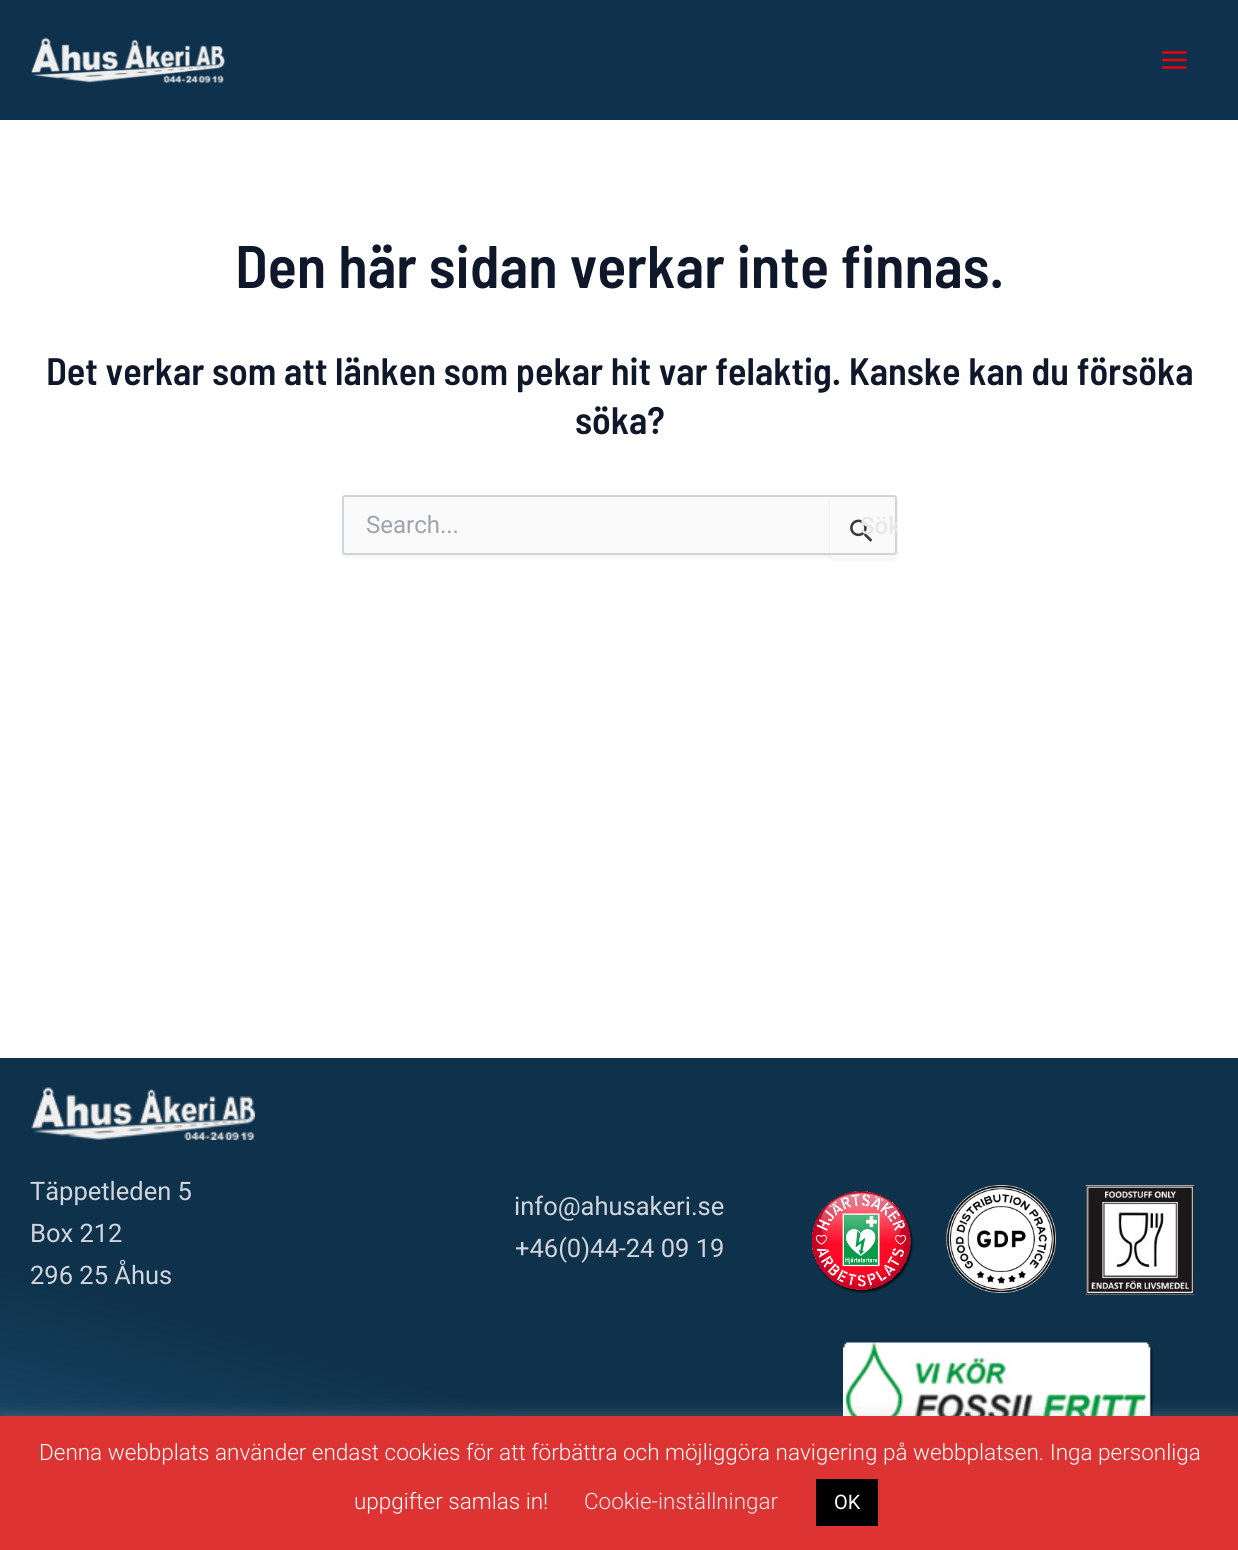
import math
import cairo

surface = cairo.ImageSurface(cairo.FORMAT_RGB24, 1238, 1550)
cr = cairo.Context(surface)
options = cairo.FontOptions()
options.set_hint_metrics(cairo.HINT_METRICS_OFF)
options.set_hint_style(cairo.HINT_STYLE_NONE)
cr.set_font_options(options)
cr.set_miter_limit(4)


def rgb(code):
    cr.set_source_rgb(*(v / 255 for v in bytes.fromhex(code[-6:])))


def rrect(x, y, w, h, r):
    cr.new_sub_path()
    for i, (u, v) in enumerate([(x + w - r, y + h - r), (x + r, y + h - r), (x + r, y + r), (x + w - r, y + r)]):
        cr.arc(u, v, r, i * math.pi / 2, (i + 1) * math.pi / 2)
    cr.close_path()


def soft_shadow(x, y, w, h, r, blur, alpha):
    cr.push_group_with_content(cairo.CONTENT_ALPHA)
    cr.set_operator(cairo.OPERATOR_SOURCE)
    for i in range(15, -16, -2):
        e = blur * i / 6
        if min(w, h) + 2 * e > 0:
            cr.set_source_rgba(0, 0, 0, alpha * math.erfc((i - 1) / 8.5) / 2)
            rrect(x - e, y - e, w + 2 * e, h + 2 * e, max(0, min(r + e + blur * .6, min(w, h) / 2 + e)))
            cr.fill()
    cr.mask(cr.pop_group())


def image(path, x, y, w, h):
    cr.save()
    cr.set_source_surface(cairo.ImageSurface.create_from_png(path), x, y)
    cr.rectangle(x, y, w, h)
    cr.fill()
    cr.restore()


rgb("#ffffff")
cr.paint()
rgb("#0e314d")
cr.rectangle(0, 0, 1238, 120)
cr.fill()
image("img/1.png", 31, 37, 194, 46)
image("img/2.png", 1162, 51, 25, 18)
rgb("#000000")
soft_shadow(342, 497, 555, 60, 3, 1.5, 0.05)
rgb("#fafafa")
rrect(343, 496, 553, 58, 2)
cr.fill_preserve()
rgb("#d1d5db")
cr.stroke()
image("img/3.png", 850, 519, 22, 23)
cr.save()
cr.set_fill_rule(cairo.FILL_RULE_EVEN_ODD)
cr.new_path()
cr.move_to(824, 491)
cr.line_to(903, 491)
cr.line_to(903, 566)
cr.line_to(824, 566)
cr.close_path()
cr.move_to(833, 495)
cr.line_to(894, 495)
cr.curve_to(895.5, 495, 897, 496.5, 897, 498)
cr.line_to(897, 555)
cr.curve_to(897, 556.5, 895.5, 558, 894, 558)
cr.line_to(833, 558)
cr.curve_to(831.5, 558, 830, 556.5, 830, 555)
cr.line_to(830, 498)
cr.curve_to(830, 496.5, 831.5, 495, 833, 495)
cr.close_path()
cr.clip()
rgb("#000000")
soft_shadow(830, 497, 67, 63, 3, 1.5, 0.05)
cr.restore()
gradient = cairo.LinearGradient(732, 912, 507, 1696)
gradient.add_color_stop_rgba(0.66, 0.055, 0.196, 0.298, 1)
gradient.add_color_stop_rgba(1, 0.114, 0.31, 0.455, 1)
cr.set_source(gradient)
cr.rectangle(0, 1058, 1238, 358)
cr.fill()
image("img/4.png", 31, 1087, 224, 53)
image("img/5.png", 812, 1191, 102, 103)
image("img/6.png", 946, 1185, 110, 108)
image("img/7.png", 1086, 1185, 108, 110)
image("img/8.png", 843, 1342, 311, 74)
rgb("#acabab")
soft_shadow(0, 1415, 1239, 135, 0, 7.5, 0.3)
rgb("#dd3333")
cr.rectangle(0, 1416, 1238, 134)
cr.fill()
rgb("#000000")
cr.rectangle(816, 1479, 62, 47)
cr.fill()
cr.select_font_face("Barlow Semi Condensed SemiBold")
cr.set_font_size(60)
rgb("#0f172a")
cr.move_to(235, 288)
cr.show_text("Den här sidan verkar inte finnas.")
cr.set_font_size(38.25)
cr.move_to(46, 385)
cr.show_text("Det verkar som att länken som pekar hit var felaktig. Kanske kan du försöka")
cr.move_to(575, 434)
cr.show_text("söka?")
cr.select_font_face("Roboto")
cr.set_font_size(24)
rgb("#9ca3af")
cr.move_to(366, 533)
cr.show_text("Search...")
cr.save()
rrect(830, 495, 67, 63, 3)
cr.clip()
cr.select_font_face("Roboto Medium")
rgb("#e8e8e9")
cr.move_to(860, 534)
cr.show_text("Sök")
cr.restore()
cr.set_font_size(25.5)
rgb("#d1d5db")
for x, y, s in [
    (30, 1200, "Täppetleden 5"),
    (30, 1242, "Box 212"),
    (30, 1284, "296 25 Åhus"),
    (514, 1215, "info@ahusakeri.se"),
    (515, 1257, "+46(0)44-24 09 19"),
]:
    cr.move_to(x, y)
    cr.show_text(s)
cr.select_font_face("Roboto Light")
cr.set_font_size(22.5)
rgb("#ffffff")
cr.move_to(39, 1460)
cr.show_text("Denna webbplats använder endast cookies för att förbättra och möjliggöra navigering på webbplatsen. Inga personliga")
cr.move_to(354, 1509)
cr.show_text("uppgifter samlas in!")
rgb("#e8e8e9")
cr.move_to(584, 1509)
cr.show_text("Cookie-inställningar")
cr.select_font_face("Roboto")
cr.set_font_size(20)
rgb("#ffffff")
cr.move_to(834, 1509)
cr.show_text("OK")
surface.write_to_png("page.png")
